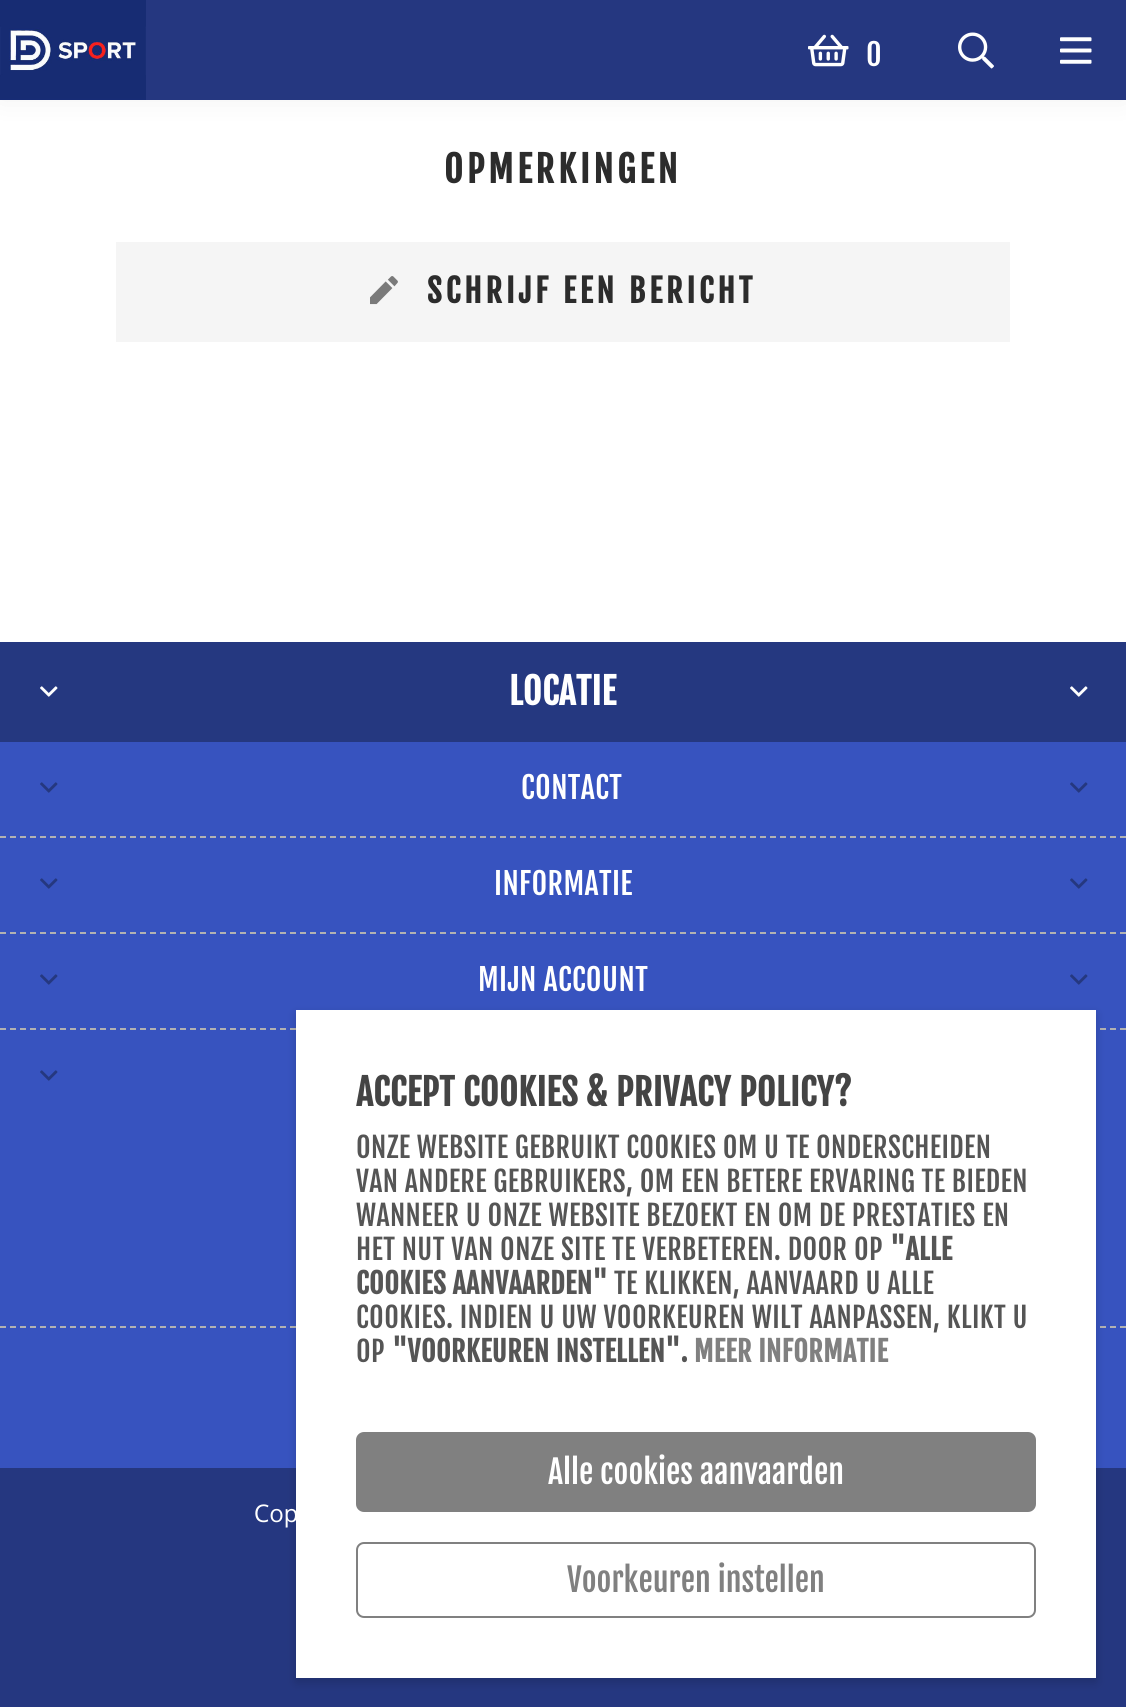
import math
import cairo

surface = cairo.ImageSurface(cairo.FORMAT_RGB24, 1126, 1707)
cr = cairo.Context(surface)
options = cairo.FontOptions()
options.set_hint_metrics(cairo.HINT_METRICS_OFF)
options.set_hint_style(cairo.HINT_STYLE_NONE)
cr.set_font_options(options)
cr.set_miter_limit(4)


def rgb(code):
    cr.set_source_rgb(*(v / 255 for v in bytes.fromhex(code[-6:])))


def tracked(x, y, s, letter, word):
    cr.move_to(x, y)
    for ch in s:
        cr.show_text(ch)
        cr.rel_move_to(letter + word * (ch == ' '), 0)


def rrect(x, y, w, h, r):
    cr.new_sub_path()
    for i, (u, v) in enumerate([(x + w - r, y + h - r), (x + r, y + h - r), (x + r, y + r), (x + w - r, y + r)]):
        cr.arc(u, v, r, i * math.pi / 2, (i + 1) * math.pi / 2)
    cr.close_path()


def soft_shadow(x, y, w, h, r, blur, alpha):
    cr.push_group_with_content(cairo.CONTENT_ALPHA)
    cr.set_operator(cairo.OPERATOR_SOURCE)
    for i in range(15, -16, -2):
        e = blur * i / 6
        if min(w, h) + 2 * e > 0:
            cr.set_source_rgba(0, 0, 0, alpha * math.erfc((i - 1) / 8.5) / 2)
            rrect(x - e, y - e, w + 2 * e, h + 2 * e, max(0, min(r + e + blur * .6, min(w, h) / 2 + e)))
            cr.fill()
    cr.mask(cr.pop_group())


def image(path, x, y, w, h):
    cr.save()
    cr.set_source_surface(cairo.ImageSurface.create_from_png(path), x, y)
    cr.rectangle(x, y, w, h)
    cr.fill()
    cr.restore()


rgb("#ffffff")
cr.paint()
rgb("#000000")
soft_shadow(0, 0, 1126, 100, 0, 14, 0.06)
rgb("#253780")
cr.rectangle(0, 0, 1126, 100)
cr.fill()
image("img/1.png", 0, 0, 146, 100)
image("img/2.png", 808, 34, 41, 33)
image("img/3.png", 958, 32, 36, 37)
image("img/4.png", 1060, 37, 32, 27)
rgb("#f5f5f5")
cr.rectangle(116, 242, 894, 100)
cr.fill()
image("img/5.png", 370, 276, 28, 29)
rgb("#3753bf")
cr.rectangle(0, 742, 1126, 726)
cr.fill()
rgb("#253880")
cr.rectangle(0, 642, 1126, 100)
cr.fill()
image("img/6.png", 40, 686, 18, 11)
image("img/6.png", 1070, 686, 18, 11)
image("img/7.png", 40, 782, 18, 11)
image("img/7.png", 1070, 782, 18, 11)
cr.new_path()
cr.move_to(0, 837)
cr.line_to(1126, 837)
rgb("#b2b2b2")
cr.set_dash([6, 4])
cr.stroke()
image("img/7.png", 40, 878, 18, 11)
image("img/7.png", 1070, 878, 18, 11)
cr.new_path()
cr.move_to(0, 933)
cr.line_to(1126, 933)
cr.stroke()
image("img/7.png", 40, 974, 18, 11)
image("img/7.png", 1070, 974, 18, 11)
cr.new_path()
cr.move_to(0, 1327)
cr.line_to(1126, 1327)
cr.stroke()
cr.new_path()
cr.move_to(0, 1029)
cr.line_to(1126, 1029)
cr.stroke()
image("img/7.png", 40, 1070, 18, 11)
rgb("#253780")
cr.rectangle(0, 1468, 1126, 239)
cr.fill()
rgb("#000000")
soft_shadow(296, 1014, 800, 668, 0, 5, 0.16)
rgb("#ffffff")
cr.rectangle(296, 1010, 800, 668)
cr.fill()
rgb("#808080")
rrect(356, 1432, 680, 80, 8)
cr.fill()
rrect(357, 1543, 678, 74, 7)
cr.set_dash([])
cr.stroke()
cr.select_font_face("Fjalla One")
cr.set_font_size(30)
rgb("#ffffff")
tracked(866, 66, "0", 0.4, 0)
cr.select_font_face("Fjalla One", cairo.FONT_SLANT_NORMAL, cairo.FONT_WEIGHT_BOLD)
cr.set_font_size(36)
rgb("#2c2c2c")
tracked(444, 183, "OPMERKINGEN", 4, 0)
cr.set_font_size(32)
tracked(427, 303, "SCHRIJF EEN BERICHT", 4, 0)
cr.set_font_size(36)
rgb("#ffffff")
tracked(509, 705, "LOCATIE", 0.4, 0)
cr.select_font_face("Fjalla One")
cr.set_font_size(30)
for x, y, s in [
    (521, 799, "CONTACT"),
    (494, 895, "INFORMATIE"),
    (478, 991, "MIJN ACCOUNT"),
]:
    tracked(x, y, s, 0.4, 0)
cr.select_font_face("Oxygen")
cr.set_font_size(24)
tracked(254, 1522, "Cop", 0.4, 0)
cr.select_font_face("Fjalla One", cairo.FONT_SLANT_NORMAL, cairo.FONT_WEIGHT_BOLD)
cr.set_font_size(36)
rgb("#444444")
tracked(356, 1106, "ACCEPT COOKIES & PRIVACY POLICY?", 0.4, 0)
cr.select_font_face("Fjalla One")
cr.set_font_size(28)
rgb("#555555")
for x, y, s in [
    (356, 1158, "ONZE WEBSITE GEBRUIKT COOKIES OM U TE ONDERSCHEIDEN"),
    (356, 1192, "VAN ANDERE GEBRUIKERS, OM EEN BETERE ERVARING TE BIEDEN"),
    (356, 1226, "WANNEER U ONZE WEBSITE BEZOEKT EN OM DE PRESTATIES EN"),
    (356, 1260, "HET NUT VAN ONZE SITE TE VERBETEREN. DOOR OP"),
]:
    tracked(x, y, s, 0.4, 0)
cr.select_font_face("Fjalla One", cairo.FONT_SLANT_NORMAL, cairo.FONT_WEIGHT_BOLD)
tracked(890, 1260, "\"ALLE", 0.4, 0)
tracked(356, 1294, "COOKIES AANVAARDEN\"", 0.4, 0)
cr.select_font_face("Fjalla One")
for x, y, s in [
    (614, 1294, "TE KLIKKEN, AANVAARD U ALLE"),
    (356, 1328, "COOKIES. INDIEN U UW VOORKEUREN WILT AANPASSEN, KLIKT U"),
    (356, 1362, "OP"),
]:
    tracked(x, y, s, 0.4, 0)
cr.select_font_face("Fjalla One", cairo.FONT_SLANT_NORMAL, cairo.FONT_WEIGHT_BOLD)
tracked(392, 1362, "\"VOORKEUREN INSTELLEN\".", 0.4, 0)
rgb("#808080")
tracked(694, 1362, "MEER INFORMATIE", 0.4, 0)
cr.select_font_face("Fjalla One")
cr.set_font_size(32)
rgb("#ffffff")
cr.move_to(548, 1484)
cr.show_text("Alle cookies aanvaarden")
rgb("#808080")
cr.move_to(567, 1592)
cr.show_text("Voorkeuren instellen")
surface.write_to_png("page.png")
